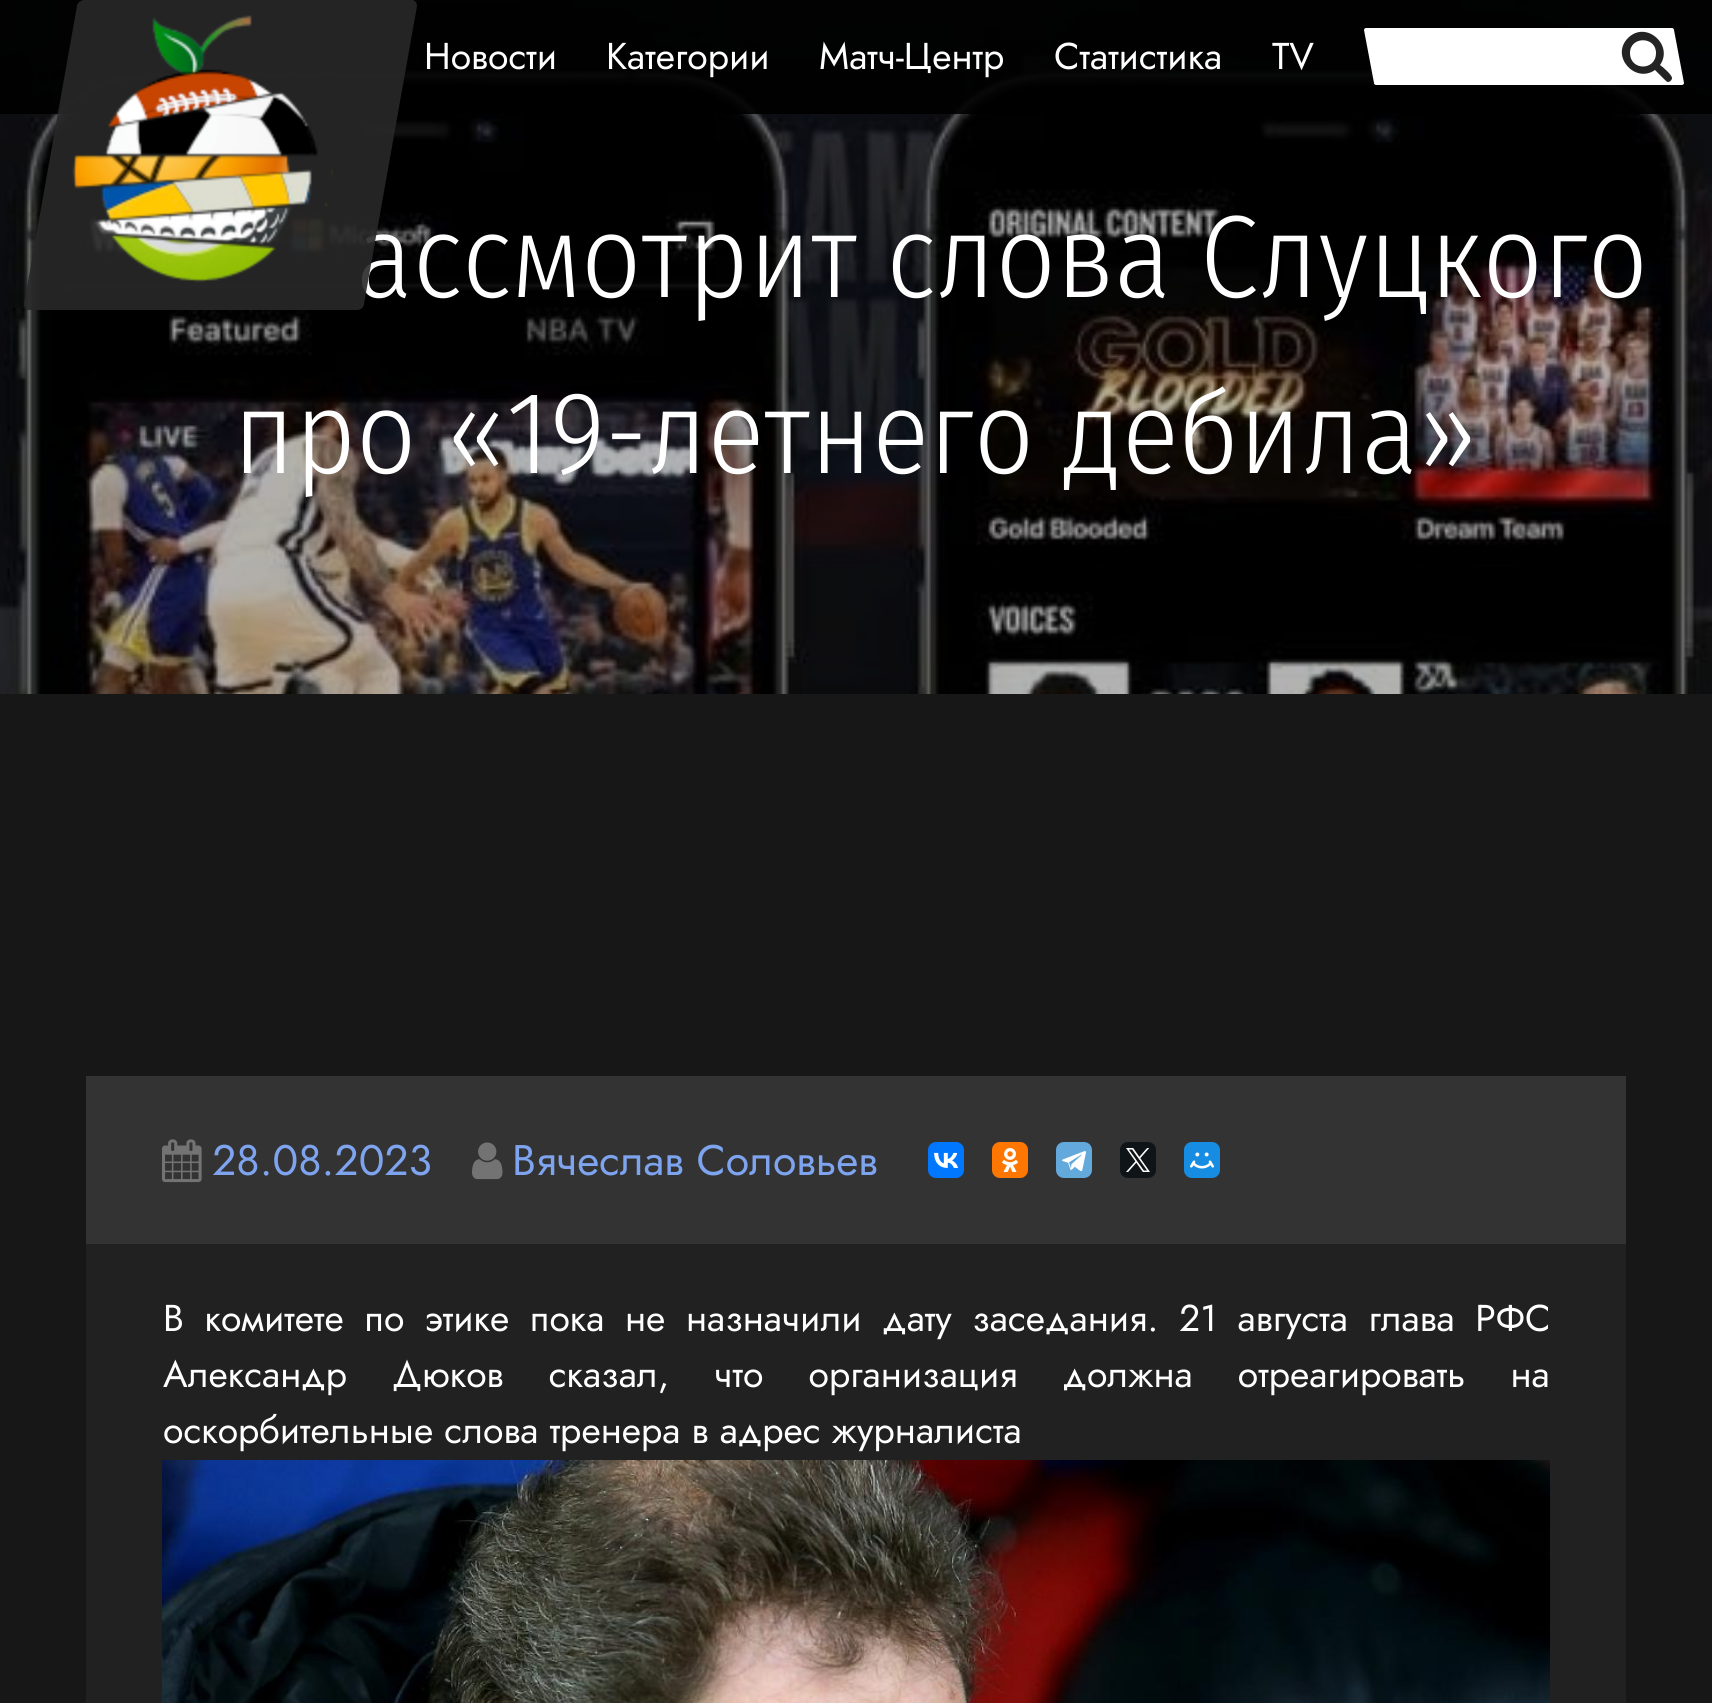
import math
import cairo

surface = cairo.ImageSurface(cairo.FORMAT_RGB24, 1712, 1703)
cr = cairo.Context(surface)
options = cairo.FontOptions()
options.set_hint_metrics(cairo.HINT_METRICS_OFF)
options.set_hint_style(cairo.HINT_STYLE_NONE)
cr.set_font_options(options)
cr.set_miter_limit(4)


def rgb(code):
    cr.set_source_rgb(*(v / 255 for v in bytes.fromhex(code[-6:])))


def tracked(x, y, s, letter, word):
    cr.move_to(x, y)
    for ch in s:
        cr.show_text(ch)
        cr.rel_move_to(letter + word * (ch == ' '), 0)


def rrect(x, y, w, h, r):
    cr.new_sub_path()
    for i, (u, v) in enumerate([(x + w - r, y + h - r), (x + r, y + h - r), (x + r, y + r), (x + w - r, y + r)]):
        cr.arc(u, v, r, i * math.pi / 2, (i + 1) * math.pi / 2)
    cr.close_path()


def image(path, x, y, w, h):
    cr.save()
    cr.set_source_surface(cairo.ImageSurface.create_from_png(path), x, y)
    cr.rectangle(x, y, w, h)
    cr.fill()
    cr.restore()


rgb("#ffffff")
cr.paint()
image("img/2.png", 0, 0, 1712, 694)
cr.set_source_rgba(0, 0, 0, 0.3)
cr.rectangle(0, 0, 1712, 694)
cr.fill()
cr.set_source_rgba(0, 0, 0, 0.9)
cr.rectangle(0, 0, 1712, 114)
cr.fill()
rgb("#ffffff")
cr.new_path()
cr.move_to(1366, 28)
cr.line_to(1672, 28)
cr.curve_to(1673, 28, 1674, 29, 1674, 30)
cr.line_to(1684, 83)
cr.curve_to(1684, 84, 1683, 85, 1682, 85)
cr.line_to(1376, 85)
cr.curve_to(1375, 85, 1374, 84, 1374, 83)
cr.line_to(1364, 30)
cr.curve_to(1364, 29, 1365, 28, 1366, 28)
cr.close_path()
cr.fill()
rgb("#252424")
cr.new_path()
cr.move_to(1656, 53)
cr.curve_to(1656, 71, 1630, 71, 1630, 53)
cr.curve_to(1630, 36, 1656, 36, 1656, 53)
cr.close_path()
cr.move_to(1672, 78)
cr.curve_to(1672, 75, 1663, 67, 1660, 65)
cr.curve_to(1674, 45, 1646, 20, 1628, 38)
cr.curve_to(1610, 56, 1635, 84, 1655, 70)
cr.line_to(1665, 80)
cr.curve_to(1666, 81, 1667, 82, 1668, 82)
cr.curve_to(1670, 82, 1672, 80, 1672, 78)
cr.close_path()
cr.fill()
rgb("#171717")
cr.rectangle(0, 694, 1712, 1009)
cr.fill()
rgb("#333333")
cr.rectangle(86, 1076, 1540, 168)
cr.fill()
image("img/3.png", 162, 1139, 40, 44)
image("img/4.png", 472, 1142, 31, 38)
rgb("#0077ff")
rrect(928, 1142, 36, 36, 8)
cr.fill()
image("img/5.png", 934, 1152, 24, 16)
rgb("#ff7700")
rrect(992, 1142, 36, 36, 8)
cr.fill()
image("img/6.png", 1002, 1148, 17, 24)
rgb("#64a9dc")
rrect(1056, 1142, 36, 36, 8)
cr.fill()
image("img/7.png", 1062, 1151, 24, 21)
rgb("#0f1419")
rrect(1120, 1142, 36, 36, 8)
cr.fill()
image("img/8.png", 1126, 1148, 24, 24)
rgb("#168de2")
rrect(1184, 1142, 36, 36, 8)
cr.fill()
image("img/9.png", 1190, 1152, 24, 17)
rgb("#212121")
cr.rectangle(86, 1244, 1540, 459)
cr.fill()
image("img/10.png", 162, 1460, 1388, 243)
cr.select_font_face("Jost")
cr.set_font_size(37.35)
rgb("#ffffff")
for x, y, s in [
    (424, 69, "Новости"),
    (606, 69, "Категории"),
    (819, 69, "Матч-Центр"),
    (1054, 69, "Статистика"),
    (1272, 69, "TV"),
]:
    cr.move_to(x, y)
    cr.show_text(s)
cr.select_font_face("Fira Sans Condensed Light")
cr.set_font_size(117.25)
cr.move_to(356, 297)
cr.show_text("ассмотрит слова Слуцкого")
cr.set_source_rgba(0.157, 0.157, 0.157, 0.9)
cr.new_path()
cr.move_to(84, 0)
cr.line_to(412, 0)
cr.curve_to(415, 0, 417, 3, 417, 6)
cr.line_to(364, 304)
cr.curve_to(364, 307, 361, 310, 357, 310)
cr.line_to(29, 310)
cr.curve_to(26, 310, 24, 307, 24, 304)
cr.line_to(77, 6)
cr.curve_to(77, 3, 81, 0, 84, 0)
cr.close_path()
cr.fill()
image("img/1.png", 72, 15, 261, 268)
rgb("#ffffff")
cr.move_to(233, 473)
cr.show_text("про «19-летнего дебила»")
cr.select_font_face("Jost")
cr.set_font_size(42.75)
rgb("#7ea4ef")
cr.move_to(212, 1175)
cr.show_text("28.08.2023")
cr.move_to(512, 1175)
cr.show_text("Вячеслав Соловьев")
cr.set_font_size(37.35)
rgb("#ffffff")
tracked(163, 1331, "В комитете по этике пока не назначили дату заседания. 21 августа глава РФС", 0, 9.4)
tracked(163, 1387, "Александр Дюков сказал, что организация должна отреагировать на", 0, 34)
cr.move_to(163, 1443)
cr.show_text("оскорбительные слова тренера в адрес журналиста")
surface.write_to_png("page.png")
